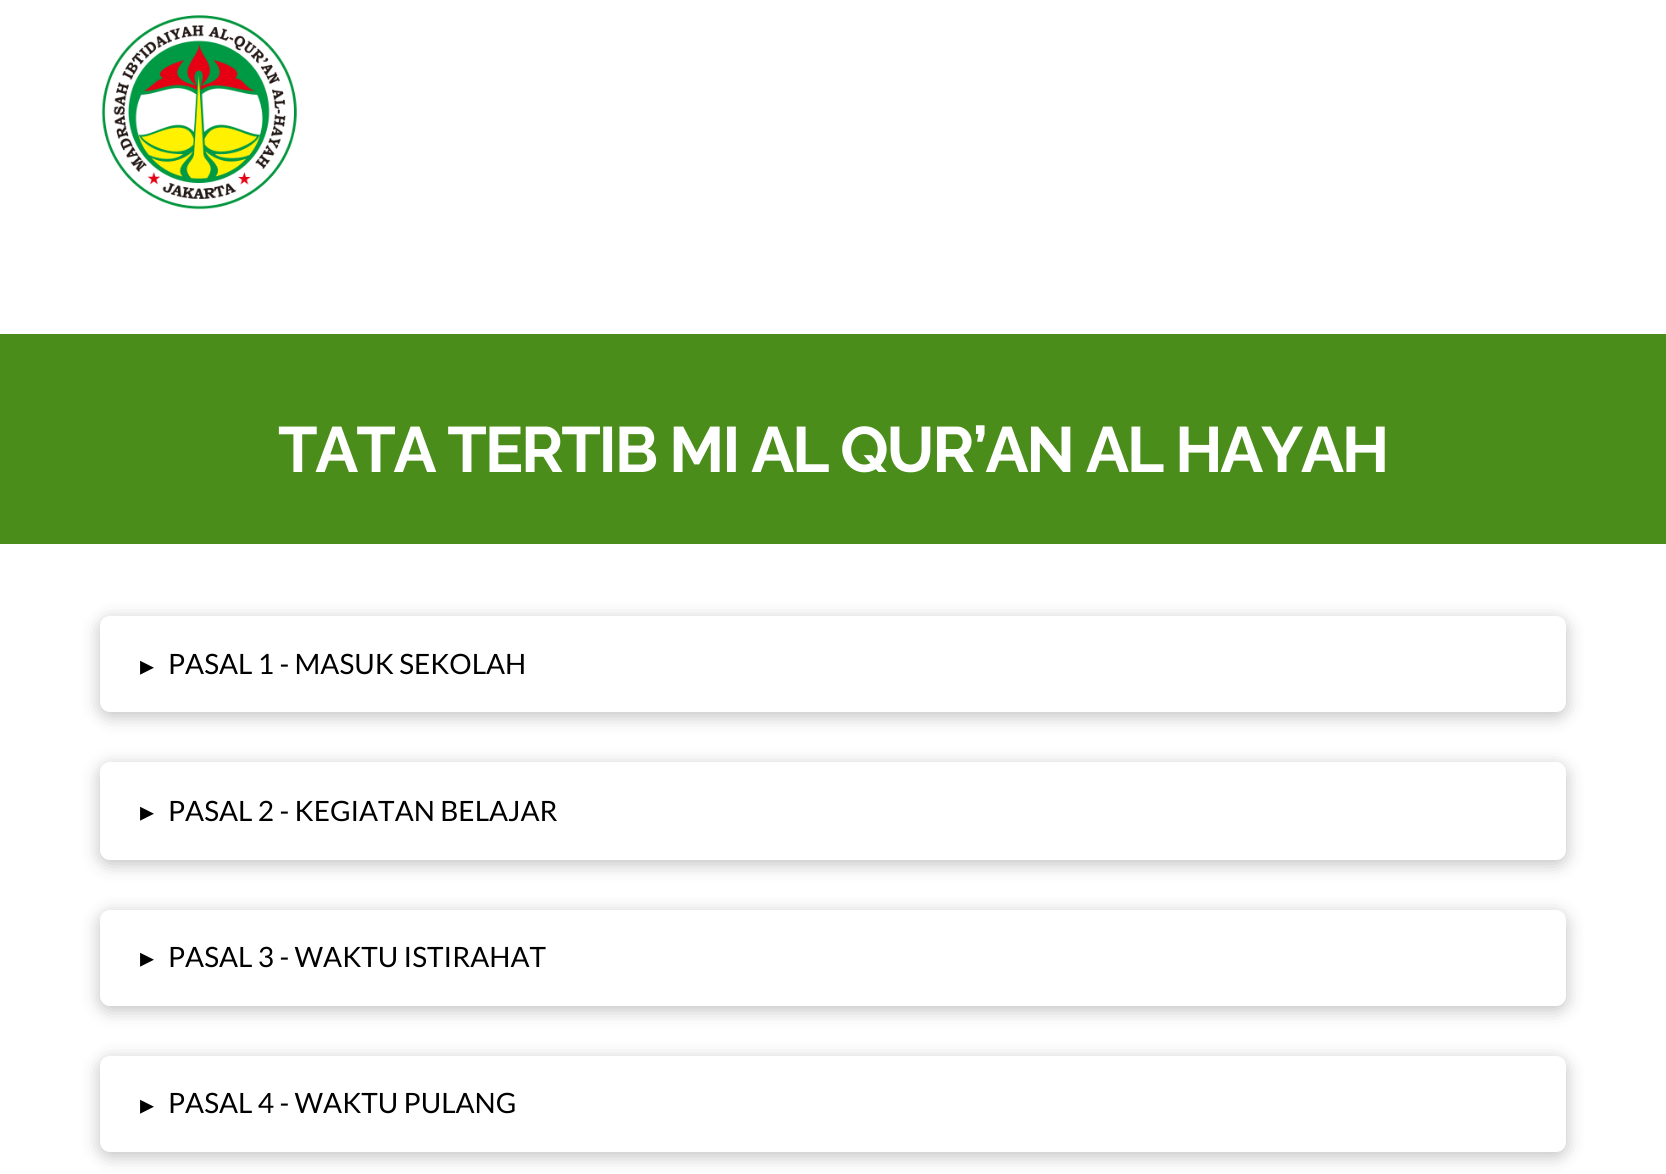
import math
import cairo

surface = cairo.ImageSurface(cairo.FORMAT_RGB24, 1666, 1174)
cr = cairo.Context(surface)
options = cairo.FontOptions()
options.set_hint_metrics(cairo.HINT_METRICS_OFF)
options.set_hint_style(cairo.HINT_STYLE_NONE)
cr.set_font_options(options)
cr.set_miter_limit(4)


def rgb(code):
    cr.set_source_rgb(*(v / 255 for v in bytes.fromhex(code[-6:])))


def tracked(x, y, s, letter, word):
    cr.move_to(x, y)
    for ch in s:
        cr.show_text(ch)
        cr.rel_move_to(letter + word * (ch == ' '), 0)


def rrect(x, y, w, h, r):
    cr.new_sub_path()
    for i, (u, v) in enumerate([(x + w - r, y + h - r), (x + r, y + h - r), (x + r, y + r), (x + w - r, y + r)]):
        cr.arc(u, v, r, i * math.pi / 2, (i + 1) * math.pi / 2)
    cr.close_path()


def soft_shadow(x, y, w, h, r, blur, alpha):
    cr.push_group_with_content(cairo.CONTENT_ALPHA)
    cr.set_operator(cairo.OPERATOR_SOURCE)
    for i in range(15, -16, -2):
        e = blur * i / 6
        if min(w, h) + 2 * e > 0:
            cr.set_source_rgba(0, 0, 0, alpha * math.erfc((i - 1) / 8.5) / 2)
            rrect(x - e, y - e, w + 2 * e, h + 2 * e, max(0, min(r + e + blur * .6, min(w, h) / 2 + e)))
            cr.fill()
    cr.mask(cr.pop_group())


def image(path, x, y, w, h):
    cr.save()
    cr.set_source_surface(cairo.ImageSurface.create_from_png(path), x, y)
    cr.rectangle(x, y, w, h)
    cr.fill()
    cr.restore()


rgb("#ffffff")
cr.paint()
image("img/1.png", 101, 15, 196, 195)
rgb("#4b8d1b")
cr.rectangle(0, 334, 1666, 210)
cr.fill()
rgb("#000000")
soft_shadow(100, 620, 1466, 96, 10, 9, 0.25)
rgb("#ffffff")
rrect(100, 616, 1466, 96, 10)
cr.fill()
rgb("#000000")
soft_shadow(100, 766, 1466, 98, 10, 9, 0.25)
rgb("#ffffff")
rrect(100, 762, 1466, 98, 10)
cr.fill()
rgb("#000000")
soft_shadow(100, 914, 1466, 96, 10, 9, 0.25)
rgb("#ffffff")
rrect(100, 910, 1466, 96, 10)
cr.fill()
rgb("#000000")
soft_shadow(100, 1060, 1466, 96, 10, 9, 0.25)
rgb("#ffffff")
rrect(100, 1056, 1466, 96, 10)
cr.fill()
cr.select_font_face("Raleway", cairo.FONT_SLANT_NORMAL, cairo.FONT_WEIGHT_BOLD)
cr.set_font_size(64)
tracked(278, 472, "TATA TERTIB MI AL QUR’AN AL HAYAH", -2.25, 0)
cr.select_font_face("DejaVu Sans")
cr.set_font_size(28)
rgb("#000000")
cr.move_to(140, 675)
cr.show_text("▸")
cr.select_font_face("Lato")
cr.move_to(168, 674)
cr.show_text("PASAL 1 - MASUK SEKOLAH")
cr.select_font_face("DejaVu Sans")
cr.move_to(140, 821)
cr.show_text("▸")
cr.select_font_face("Lato")
cr.move_to(168, 821)
cr.show_text("PASAL 2 - KEGIATAN BELAJAR")
cr.select_font_face("DejaVu Sans")
cr.move_to(140, 967)
cr.show_text("▸")
cr.select_font_face("Lato")
cr.move_to(168, 967)
cr.show_text("PASAL 3 - WAKTU ISTIRAHAT")
cr.select_font_face("DejaVu Sans")
cr.move_to(140, 1114)
cr.show_text("▸")
cr.select_font_face("Lato")
cr.move_to(168, 1113)
cr.show_text("PASAL 4 - WAKTU PULANG")
surface.write_to_png("page.png")
